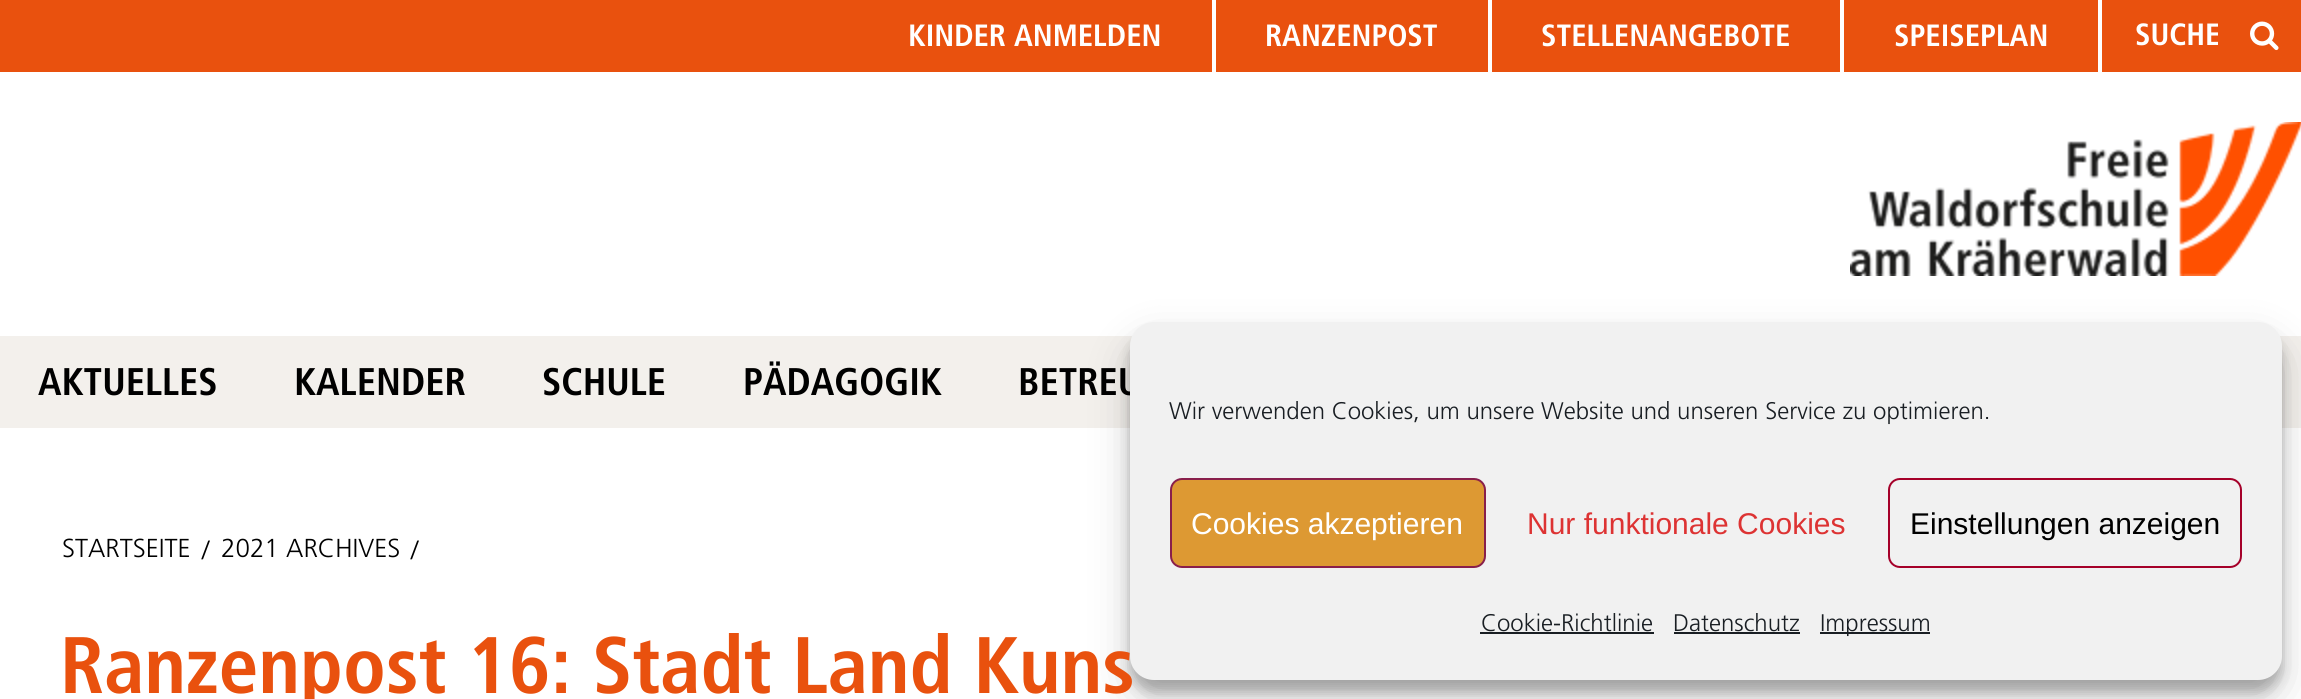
import math
import cairo

surface = cairo.ImageSurface(cairo.FORMAT_RGB24, 2301, 699)
cr = cairo.Context(surface)
options = cairo.FontOptions()
options.set_hint_metrics(cairo.HINT_METRICS_OFF)
options.set_hint_style(cairo.HINT_STYLE_NONE)
cr.set_font_options(options)
cr.set_miter_limit(4)


def rgb(code):
    cr.set_source_rgb(*(v / 255 for v in bytes.fromhex(code[-6:])))


def rrect(x, y, w, h, r):
    cr.new_sub_path()
    for i, (u, v) in enumerate([(x + w - r, y + h - r), (x + r, y + h - r), (x + r, y + r), (x + w - r, y + r)]):
        cr.arc(u, v, r, i * math.pi / 2, (i + 1) * math.pi / 2)
    cr.close_path()


def soft_shadow(x, y, w, h, r, blur, alpha):
    cr.push_group_with_content(cairo.CONTENT_ALPHA)
    cr.set_operator(cairo.OPERATOR_SOURCE)
    for i in range(15, -16, -2):
        e = blur * i / 6
        if min(w, h) + 2 * e > 0:
            cr.set_source_rgba(0, 0, 0, alpha * math.erfc((i - 1) / 8.5) / 2)
            rrect(x - e, y - e, w + 2 * e, h + 2 * e, max(0, min(r + e + blur * .6, min(w, h) / 2 + e)))
            cr.fill()
    cr.mask(cr.pop_group())


def image(path, x, y, w, h):
    cr.save()
    cr.set_source_surface(cairo.ImageSurface.create_from_png(path), x, y)
    cr.rectangle(x, y, w, h)
    cr.fill()
    cr.restore()


rgb("#ffffff")
cr.paint()
for x, y, w, h, color in [
    (0, 0, 2301, 72, "#e9510e"),
    (1212, 0, 4, 72, "#ffffff"),
    (1488, 0, 4, 72, "#ffffff"),
    (1840, 0, 4, 72, "#ffffff"),
    (2098, 0, 4, 72, "#ffffff"),
]:
    rgb(color)
    cr.rectangle(x, y, w, h)
    cr.fill()
image("img/1.png", 2250, 21, 29, 30)
image("img/2.png", 1850, 122, 451, 154)
rgb("#f3f0ec")
cr.rectangle(0, 336, 2301, 92)
cr.fill()
rgb("#000000")
soft_shadow(1130, 334, 1152, 358, 24, 6, 0.23)
soft_shadow(1130, 342, 1152, 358, 24, 20, 0.19)
cr.select_font_face("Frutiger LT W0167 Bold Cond", cairo.FONT_SLANT_NORMAL, cairo.FONT_WEIGHT_BOLD)
cr.set_font_size(30.75)
rgb("#ffffff")
for x, y, s in [
    (908, 46, "KINDER ANMELDEN"),
    (1265, 46, "RANZENPOST"),
    (1541, 46, "STELLENANGEBOTE"),
    (1894, 46, "SPEISEPLAN"),
]:
    cr.move_to(x, y)
    cr.show_text(s)
cr.save()
cr.rectangle(2136, 16, 82, 36)
cr.clip()
cr.move_to(2135, 45)
cr.show_text("SUCHE")
cr.restore()
cr.set_font_size(38.5)
rgb("#000000")
for x, y, s in [
    (38, 395, "AKTUELLES"),
    (294, 395, "KALENDER"),
    (542, 395, "SCHULE"),
    (743, 395, "PÄDAGOGIK"),
    (1018, 395, "BETREU"),
]:
    cr.move_to(x, y)
    cr.show_text(s)
cr.select_font_face("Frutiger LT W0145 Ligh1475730 Light")
cr.set_font_size(26)
for x, y, s in [
    (62, 557, "STARTSEITE"),
    (202, 559, "/"),
    (221, 557, "2021 ARCHIVES"),
    (411, 559, "/"),
]:
    cr.move_to(x, y)
    cr.show_text(s)
cr.select_font_face("Frutiger LT W0167 Bold Cond", cairo.FONT_SLANT_NORMAL, cairo.FONT_WEIGHT_BOLD)
cr.set_font_size(80)
rgb("#e9510e")
cr.move_to(60, 693)
cr.show_text("Ranzenpost 16: Stadt Land Kuns")
rgb("#f1f1f1")
rrect(1130, 322, 1152, 358, 24)
cr.fill()
cr.select_font_face("Frutiger LT W0145 Ligh1475730 Light")
cr.set_font_size(24)
rgb("#191e23")
cr.move_to(1169, 419)
cr.show_text("Wir verwenden Cookies, um unsere Website und unseren Service zu optimieren.")
rgb("#dd9933")
rrect(1171, 479, 314, 88, 11)
cr.fill_preserve()
rgb("#891f4b")
cr.stroke()
cr.select_font_face("Liberation Sans")
cr.set_font_size(30)
rgb("#ffffff")
cr.move_to(1191, 534)
cr.show_text("Cookies akzeptieren")
rgb("#dd3333")
cr.move_to(1527, 534)
cr.show_text("Nur funktionale Cookies")
rrect(1889, 479, 352, 88, 11)
rgb("#a50029")
cr.stroke()
rgb("#000000")
cr.move_to(1910, 534)
cr.show_text("Einstellungen anzeigen")
cr.select_font_face("Frutiger LT W0145 Ligh1475730 Light")
cr.set_font_size(24)
rgb("#191e23")
cr.move_to(1481, 631)
cr.show_text("Cookie-Richtlinie")
cr.rectangle(1480, 632, 174, 2)
cr.fill()
cr.move_to(1673, 631)
cr.show_text("Datenschutz")
cr.rectangle(1674, 632, 126, 2)
cr.fill()
cr.rectangle(1820, 632, 110, 2)
cr.fill()
cr.move_to(1820, 631)
cr.show_text("Impressum")
surface.write_to_png("page.png")
